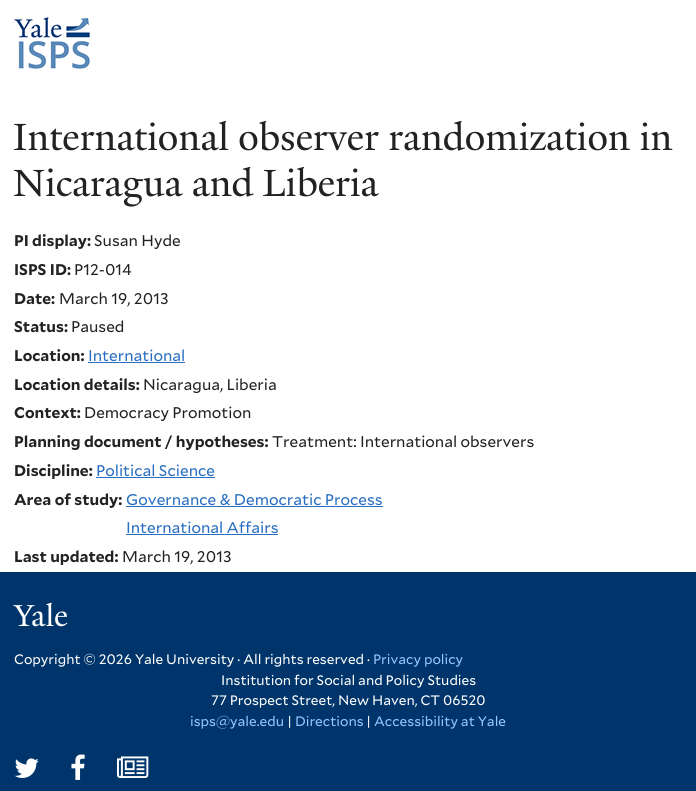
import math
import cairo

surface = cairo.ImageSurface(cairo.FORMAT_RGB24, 696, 791)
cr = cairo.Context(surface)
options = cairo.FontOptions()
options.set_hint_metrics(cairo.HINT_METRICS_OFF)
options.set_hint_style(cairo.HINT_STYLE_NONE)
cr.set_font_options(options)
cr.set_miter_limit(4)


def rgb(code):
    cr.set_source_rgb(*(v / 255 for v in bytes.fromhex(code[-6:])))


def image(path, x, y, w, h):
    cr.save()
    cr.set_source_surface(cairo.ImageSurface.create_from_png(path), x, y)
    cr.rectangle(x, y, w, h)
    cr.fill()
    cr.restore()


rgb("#ffffff")
cr.paint()
image("img/1.png", 14, 17, 76, 52)
for x, y, w, h, color in [
    (88, 362, 97, 1, "#286dc0"),
    (96, 477, 119, 1, "#286dc0"),
    (126, 506, 257, 1, "#286dc0"),
    (126, 534, 152, 1, "#286dc0"),
    (0, 572, 696, 219, "#00356b"),
]:
    rgb(color)
    cr.rectangle(x, y, w, h)
    cr.fill()
image("img/2.png", 13, 602, 55, 25)
image("img/3.png", 14, 758, 25, 20)
image("img/4.png", 71, 754, 14, 26)
image("img/5.png", 117, 756, 32, 22)
cr.select_font_face("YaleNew")
cr.set_font_size(41.1)
rgb("#222222")
cr.move_to(13, 150)
cr.show_text("International observer randomization in")
cr.move_to(13, 196)
cr.show_text("Nicaragua and Liberia")
cr.select_font_face("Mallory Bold", cairo.FONT_SLANT_NORMAL, cairo.FONT_WEIGHT_BOLD)
cr.set_font_size(15.5)
cr.move_to(14, 246)
cr.show_text("PI display:")
cr.select_font_face("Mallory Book")
cr.move_to(94, 246)
cr.show_text("Susan Hyde")
cr.select_font_face("Mallory Bold", cairo.FONT_SLANT_NORMAL, cairo.FONT_WEIGHT_BOLD)
cr.move_to(14, 275)
cr.show_text("ISPS ID:")
cr.select_font_face("Mallory Book")
cr.move_to(74, 275)
cr.show_text("P12-014")
cr.select_font_face("Mallory Bold", cairo.FONT_SLANT_NORMAL, cairo.FONT_WEIGHT_BOLD)
cr.move_to(14, 304)
cr.show_text("Date:")
cr.select_font_face("Mallory Book")
cr.move_to(59, 304)
cr.show_text("March 19, 2013")
cr.select_font_face("Mallory Bold", cairo.FONT_SLANT_NORMAL, cairo.FONT_WEIGHT_BOLD)
cr.move_to(14, 332)
cr.show_text("Status:")
cr.select_font_face("Mallory Book")
cr.move_to(71, 332)
cr.show_text("Paused")
cr.select_font_face("Mallory Bold", cairo.FONT_SLANT_NORMAL, cairo.FONT_WEIGHT_BOLD)
cr.move_to(14, 361)
cr.show_text("Location:")
cr.select_font_face("Mallory Book")
rgb("#286dc0")
cr.move_to(88, 361)
cr.show_text("International")
cr.select_font_face("Mallory Bold", cairo.FONT_SLANT_NORMAL, cairo.FONT_WEIGHT_BOLD)
rgb("#222222")
cr.move_to(14, 390)
cr.show_text("Location details:")
cr.select_font_face("Mallory Book")
cr.move_to(143, 390)
cr.show_text("Nicaragua, Liberia")
cr.select_font_face("Mallory Bold", cairo.FONT_SLANT_NORMAL, cairo.FONT_WEIGHT_BOLD)
cr.move_to(14, 418)
cr.show_text("Context:")
cr.select_font_face("Mallory Book")
cr.move_to(84, 418)
cr.show_text("Democracy Promotion")
cr.select_font_face("Mallory Bold", cairo.FONT_SLANT_NORMAL, cairo.FONT_WEIGHT_BOLD)
cr.move_to(14, 447)
cr.show_text("Planning document / hypotheses:")
cr.select_font_face("Mallory Book")
cr.move_to(272, 447)
cr.show_text("Treatment: International observers")
cr.select_font_face("Mallory Bold", cairo.FONT_SLANT_NORMAL, cairo.FONT_WEIGHT_BOLD)
cr.move_to(14, 476)
cr.show_text("Discipline:")
cr.select_font_face("Mallory Book")
rgb("#286dc0")
cr.move_to(96, 476)
cr.show_text("Political Science")
cr.select_font_face("Mallory Bold", cairo.FONT_SLANT_NORMAL, cairo.FONT_WEIGHT_BOLD)
rgb("#222222")
cr.move_to(14, 505)
cr.show_text("Area of study:")
cr.select_font_face("Mallory Book")
rgb("#286dc0")
cr.move_to(126, 505)
cr.show_text("Governance & Democratic Process")
cr.move_to(126, 533)
cr.show_text("International Affairs")
cr.select_font_face("Mallory Bold", cairo.FONT_SLANT_NORMAL, cairo.FONT_WEIGHT_BOLD)
rgb("#222222")
cr.move_to(14, 562)
cr.show_text("Last updated:")
cr.select_font_face("Mallory Book")
cr.move_to(122, 562)
cr.show_text("March 19, 2013")
cr.set_font_size(13.7)
rgb("#ffffff")
cr.move_to(14, 664)
cr.show_text("Copyright © 2026 Yale University · All rights reserved ·")
rgb("#96c6ff")
cr.move_to(373, 664)
cr.show_text("Privacy policy")
rgb("#ffffff")
cr.move_to(221, 685)
cr.show_text("Institution for Social and Policy Studies")
cr.move_to(211, 705)
cr.show_text("77 Prospect Street, New Haven, CT 06520")
rgb("#96c6ff")
cr.move_to(190, 726)
cr.show_text("isps@yale.edu")
rgb("#ffffff")
cr.move_to(287, 726)
cr.show_text("|")
rgb("#96c6ff")
cr.move_to(295, 726)
cr.show_text("Directions")
rgb("#ffffff")
cr.move_to(366, 726)
cr.show_text("|")
rgb("#96c6ff")
cr.move_to(374, 726)
cr.show_text("Accessibility at Yale")
surface.write_to_png("page.png")
